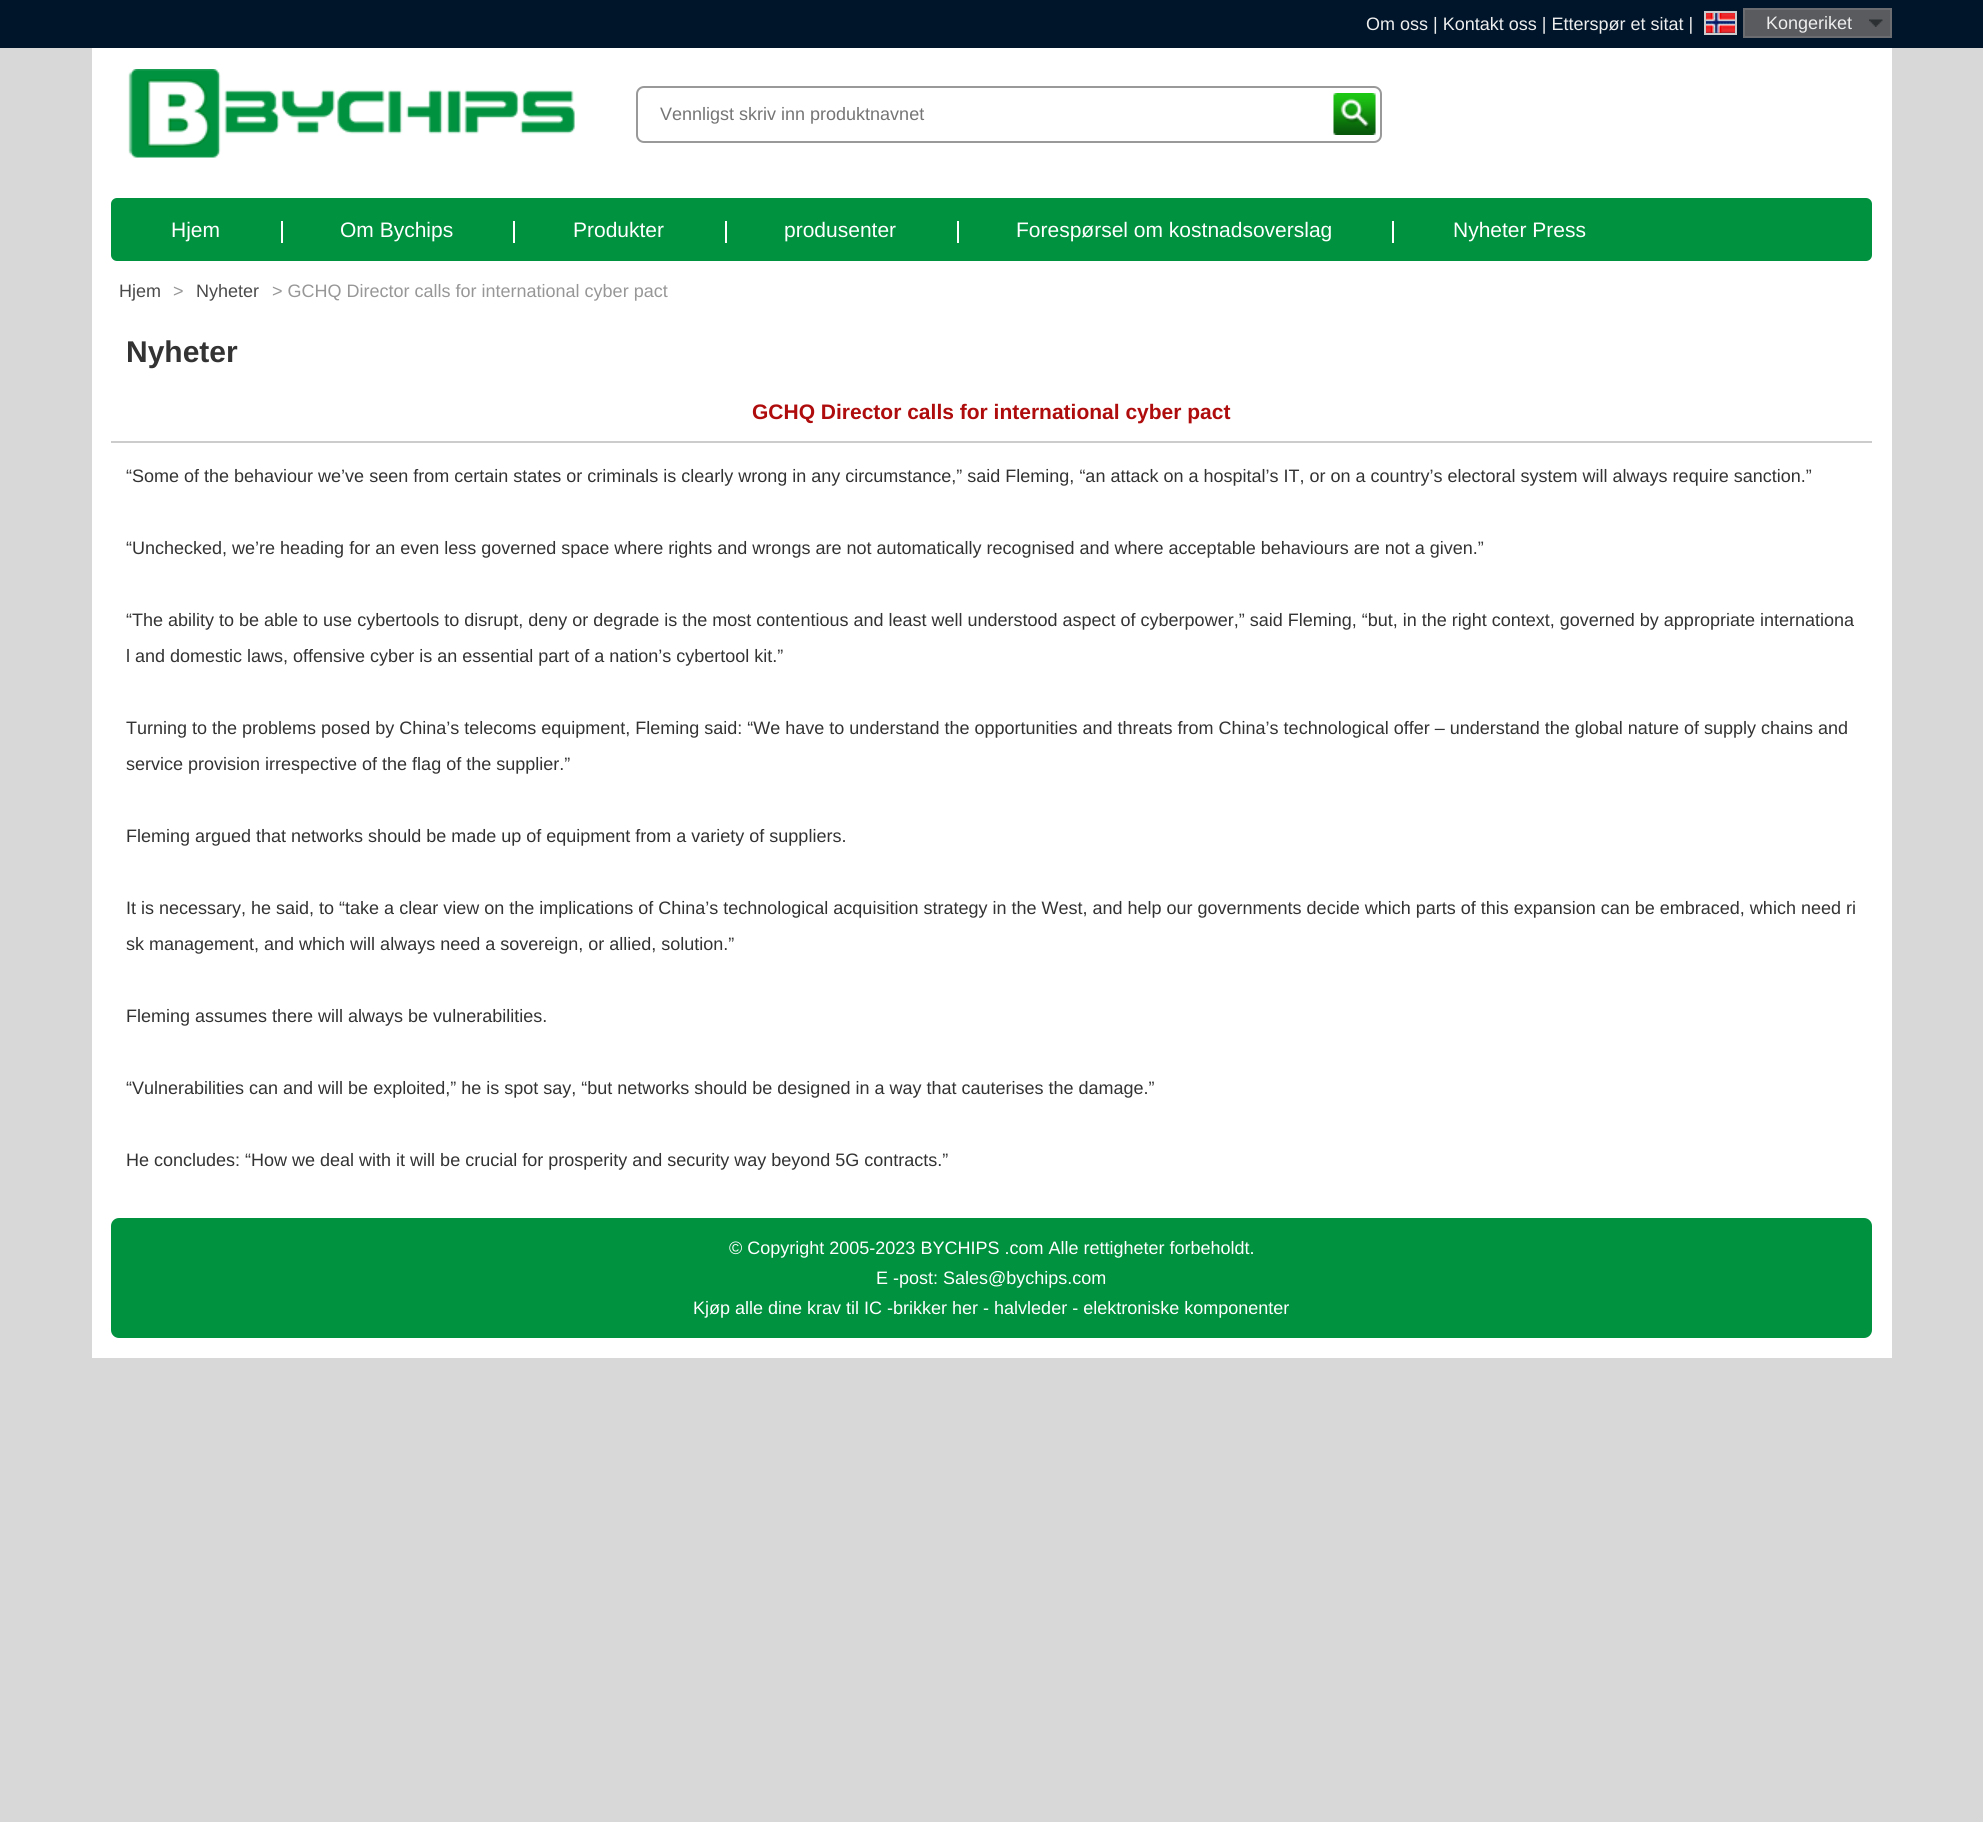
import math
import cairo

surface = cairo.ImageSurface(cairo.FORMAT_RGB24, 1983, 1822)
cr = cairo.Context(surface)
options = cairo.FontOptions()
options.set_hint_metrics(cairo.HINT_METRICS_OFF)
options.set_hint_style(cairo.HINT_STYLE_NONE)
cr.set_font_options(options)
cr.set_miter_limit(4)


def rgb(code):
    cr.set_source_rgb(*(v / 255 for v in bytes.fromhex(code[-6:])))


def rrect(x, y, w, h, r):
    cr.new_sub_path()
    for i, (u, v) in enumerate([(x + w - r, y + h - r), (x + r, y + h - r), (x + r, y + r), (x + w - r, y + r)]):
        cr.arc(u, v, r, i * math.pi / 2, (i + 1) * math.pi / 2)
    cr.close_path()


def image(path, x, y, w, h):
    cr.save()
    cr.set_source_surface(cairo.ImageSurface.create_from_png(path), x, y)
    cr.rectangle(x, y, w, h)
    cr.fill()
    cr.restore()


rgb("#d8d8d8")
cr.paint()
rgb("#00152a")
cr.rectangle(0, 0, 1983, 48)
cr.fill()
rgb("#595b5f")
cr.rectangle(1744, 9, 147, 28)
cr.fill_preserve()
rgb("#6a6c6f")
cr.stroke()
image("img/1.png", 1706, 13, 29, 20)
cr.rectangle(1705, 12, 31, 22)
rgb("#cccccc")
cr.stroke()
image("img/2.png", 1869, 19, 14, 8)
rgb("#ffffff")
cr.rectangle(92, 48, 1800, 1310)
cr.fill()
image("img/3.png", 128, 69, 447, 89)
rrect(637, 87, 744, 55, 7)
rgb("#999999")
cr.stroke()
rgb("#efefef")
cr.rectangle(1334, 93, 42, 42)
cr.fill()
image("img/4.png", 1333, 93, 43, 42)
rgb("#00923f")
rrect(111, 198, 1761, 63, 6)
cr.fill()
for x, y, w, h, color in [
    (281, 221, 2, 22, "#ffffff"),
    (513, 221, 2, 22, "#ffffff"),
    (725, 221, 2, 22, "#ffffff"),
    (957, 221, 2, 22, "#ffffff"),
    (1392, 221, 2, 22, "#ffffff"),
    (111, 441, 1761, 2, "#cccccc"),
]:
    rgb(color)
    cr.rectangle(x, y, w, h)
    cr.fill()
rgb("#00923f")
rrect(111, 1218, 1761, 120, 8)
cr.fill()
cr.select_font_face("Liberation Sans")
cr.set_font_size(18)
rgb("#eeeeee")
cr.move_to(1366, 30)
cr.show_text("Om oss | Kontakt oss | Etterspør et sitat |")
cr.move_to(1766, 29)
cr.show_text("Kongeriket")
rgb("#757575")
cr.move_to(660, 120)
cr.show_text("Vennligst skriv inn produktnavnet")
cr.set_font_size(21)
rgb("#ffffff")
for x, y, s in [
    (171, 237, "Hjem"),
    (340, 237, "Om Bychips"),
    (573, 237, "Produkter"),
    (784, 237, "produsenter"),
    (1016, 237, "Forespørsel om kostnadsoverslag"),
    (1453, 237, "Nyheter Press"),
]:
    cr.move_to(x, y)
    cr.show_text(s)
cr.set_font_size(18)
rgb("#4a4a4a")
cr.move_to(119, 297)
cr.show_text("Hjem")
rgb("#979797")
cr.move_to(173, 297)
cr.show_text(">")
rgb("#4a4a4a")
cr.move_to(196, 297)
cr.show_text("Nyheter")
rgb("#979797")
cr.move_to(272, 297)
cr.show_text("> GCHQ Director calls for international cyber pact")
cr.select_font_face("Liberation Sans", cairo.FONT_SLANT_NORMAL, cairo.FONT_WEIGHT_BOLD)
cr.set_font_size(30)
rgb("#333333")
cr.move_to(126, 362)
cr.show_text("Nyheter")
cr.set_font_size(21)
rgb("#af0d0d")
cr.move_to(752, 419)
cr.show_text("GCHQ Director calls for international cyber pact")
cr.select_font_face("Liberation Sans")
cr.set_font_size(18)
rgb("#333333")
for x, y, s in [
    (126, 482, "“Some of the behaviour we’ve seen from certain states or criminals is clearly wrong in any circumstance,” said Fleming, “an attack on a hospital’s IT, or on a country’s electoral system will always require sanction.”"),
    (126, 554, "“Unchecked, we’re heading for an even less governed space where rights and wrongs are not automatically recognised and where acceptable behaviours are not a given.”"),
    (126, 626, "“The ability to be able to use cybertools to disrupt, deny or degrade is the most contentious and least well understood aspect of cyberpower,” said Fleming, “but, in the right context, governed by appropriate internationa"),
    (126, 662, "l and domestic laws, offensive cyber is an essential part of a nation’s cybertool kit.”"),
    (126, 734, "Turning to the problems posed by China’s telecoms equipment, Fleming said: “We have to understand the opportunities and threats from China’s technological offer – understand the global nature of supply chains and"),
    (126, 770, "service provision irrespective of the flag of the supplier.”"),
    (126, 842, "Fleming argued that networks should be made up of equipment from a variety of suppliers."),
    (126, 914, "It is necessary, he said, to “take a clear view on the implications of China’s technological acquisition strategy in the West, and help our governments decide which parts of this expansion can be embraced, which need ri"),
    (126, 950, "sk management, and which will always need a sovereign, or allied, solution.”"),
    (126, 1022, "Fleming assumes there will always be vulnerabilities."),
    (126, 1094, "“Vulnerabilities can and will be exploited,” he is spot say, “but networks should be designed in a way that cauterises the damage.”"),
    (126, 1166, "He concludes: “How we deal with it will be crucial for prosperity and security way beyond 5G contracts.”"),
]:
    cr.move_to(x, y)
    cr.show_text(s)
rgb("#ffffff")
for x, y, s in [
    (729, 1254, "© Copyright 2005-2023 BYCHIPS .com Alle rettigheter forbeholdt."),
    (876, 1284, "E -post: Sales@bychips.com"),
    (693, 1314, "Kjøp alle dine krav til IC -brikker her - halvleder - elektroniske komponenter"),
]:
    cr.move_to(x, y)
    cr.show_text(s)
surface.write_to_png("page.png")
